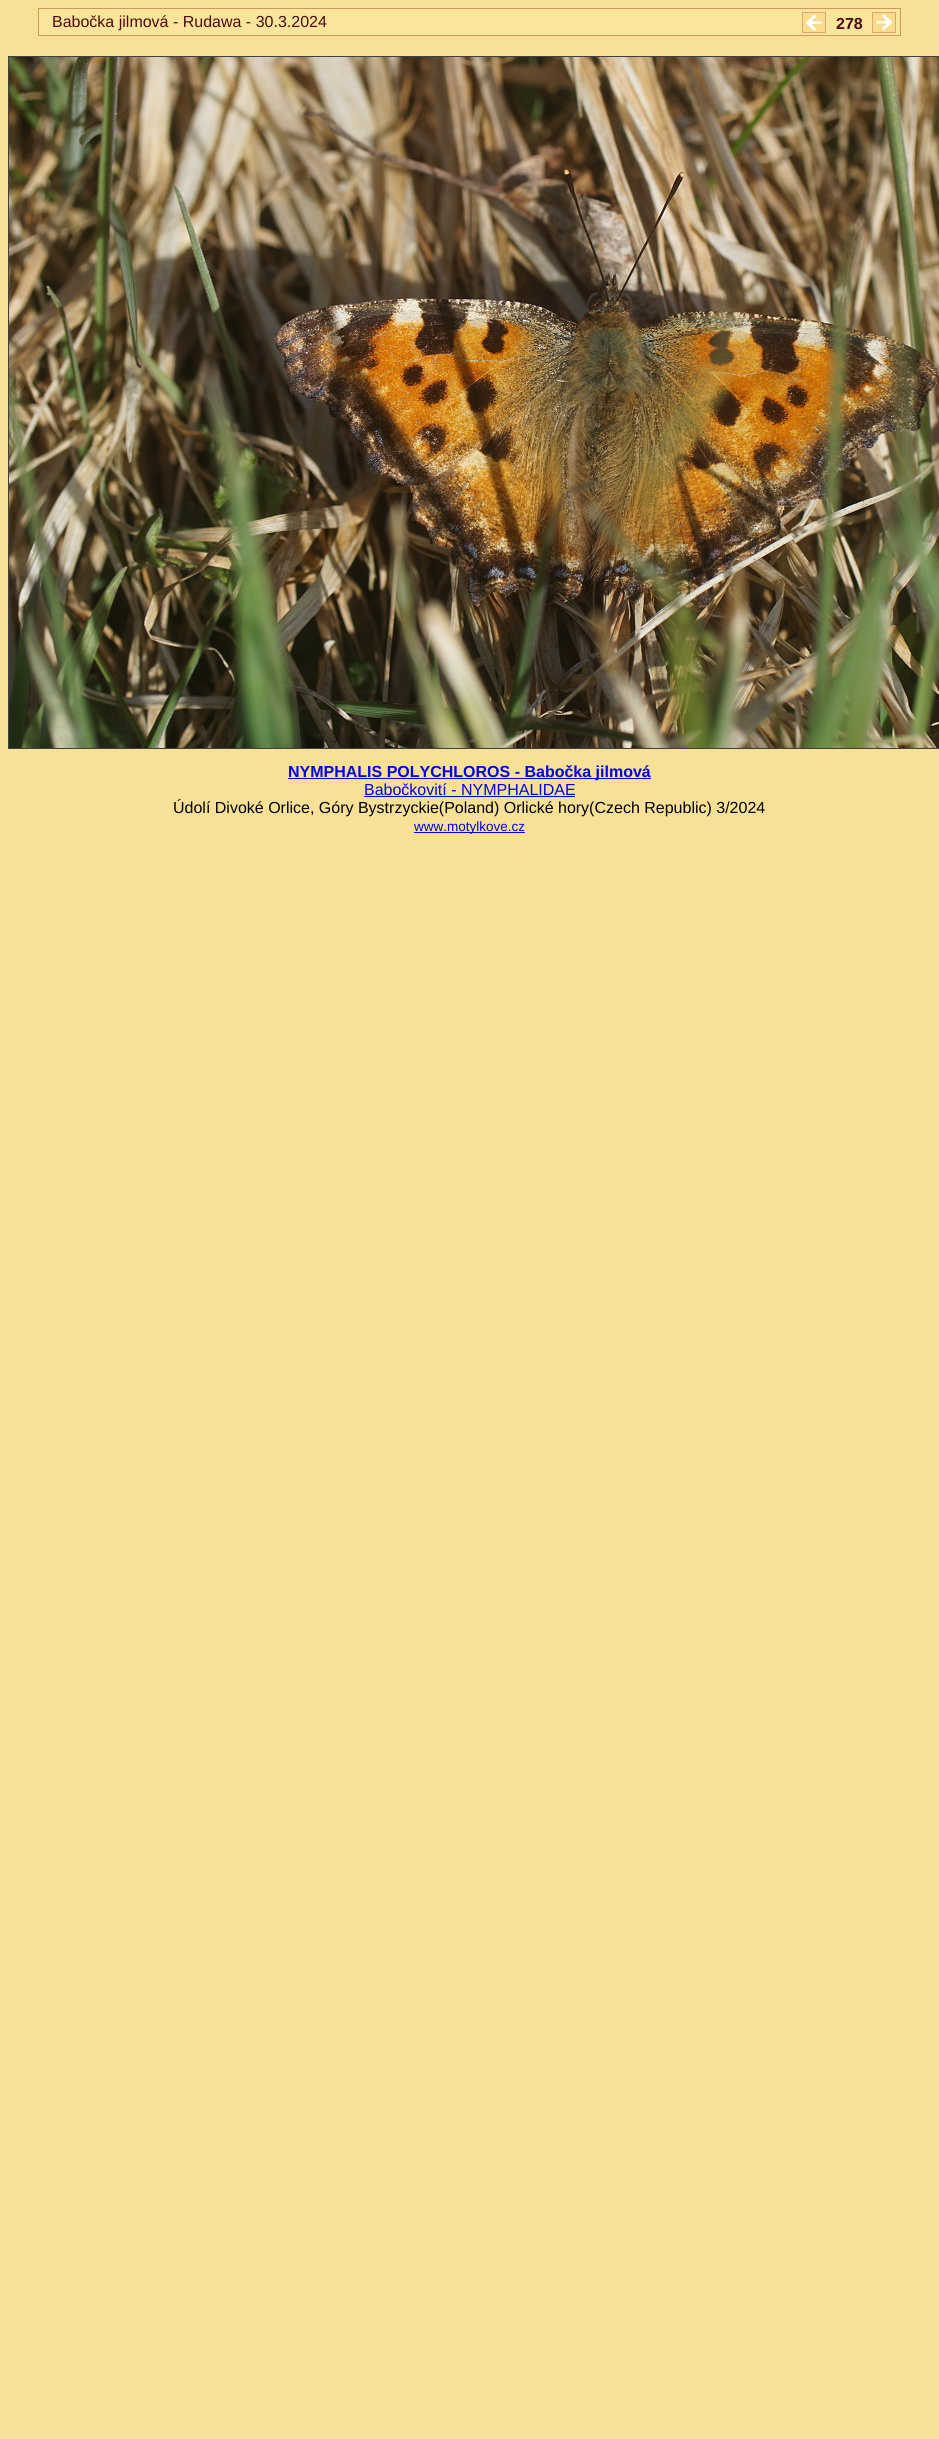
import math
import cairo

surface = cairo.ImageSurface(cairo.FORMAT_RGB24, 939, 2439)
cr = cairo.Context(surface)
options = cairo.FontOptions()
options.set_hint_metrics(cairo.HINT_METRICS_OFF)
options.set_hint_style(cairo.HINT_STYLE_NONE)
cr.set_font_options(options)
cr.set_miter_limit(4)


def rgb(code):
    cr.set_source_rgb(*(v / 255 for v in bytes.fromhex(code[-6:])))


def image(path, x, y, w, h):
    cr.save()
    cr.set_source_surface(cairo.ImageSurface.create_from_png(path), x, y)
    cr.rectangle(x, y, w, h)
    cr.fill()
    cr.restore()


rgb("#f8e196")
cr.paint()
cr.rectangle(38.5, 8.5, 862, 27)
rgb("#cc9966")
cr.set_line_width(1)
cr.stroke()
rgb("#fce59a")
cr.rectangle(39, 9, 861, 26)
cr.fill()
image("img/1.png", 802, 12, 24, 21)
image("img/2.png", 872, 12, 24, 21)
image("img/3.png", 8, 56, 931, 693)
for x, y, w, h, color in [
    (288, 778, 363, 1, "#0000ee"),
    (364, 796, 211, 1, "#0000ee"),
    (414, 832, 111, 1, "#0000ee"),
]:
    rgb(color)
    cr.rectangle(x, y, w, h)
    cr.fill()
cr.select_font_face("Liberation Sans")
cr.set_font_size(16)
rgb("#500a0a")
cr.move_to(52, 27)
cr.show_text("Babočka jilmová - Rudawa - 30.3.2024")
cr.select_font_face("Liberation Sans", cairo.FONT_SLANT_NORMAL, cairo.FONT_WEIGHT_BOLD)
cr.move_to(836, 29)
cr.show_text("278")
rgb("#0000ee")
cr.move_to(288, 777)
cr.show_text("NYMPHALIS POLYCHLOROS - Babočka jilmová")
cr.select_font_face("Liberation Sans")
cr.move_to(364, 795)
cr.show_text("Babočkovití - NYMPHALIDAE")
rgb("#000000")
cr.move_to(173, 813)
cr.show_text("Údolí Divoké Orlice, Góry Bystrzyckie(Poland) Orlické hory(Czech Republic) 3/2024")
cr.set_font_size(13.5)
rgb("#0000ee")
cr.move_to(414, 831)
cr.show_text("www.motylkove.cz")
surface.write_to_png("page.png")
